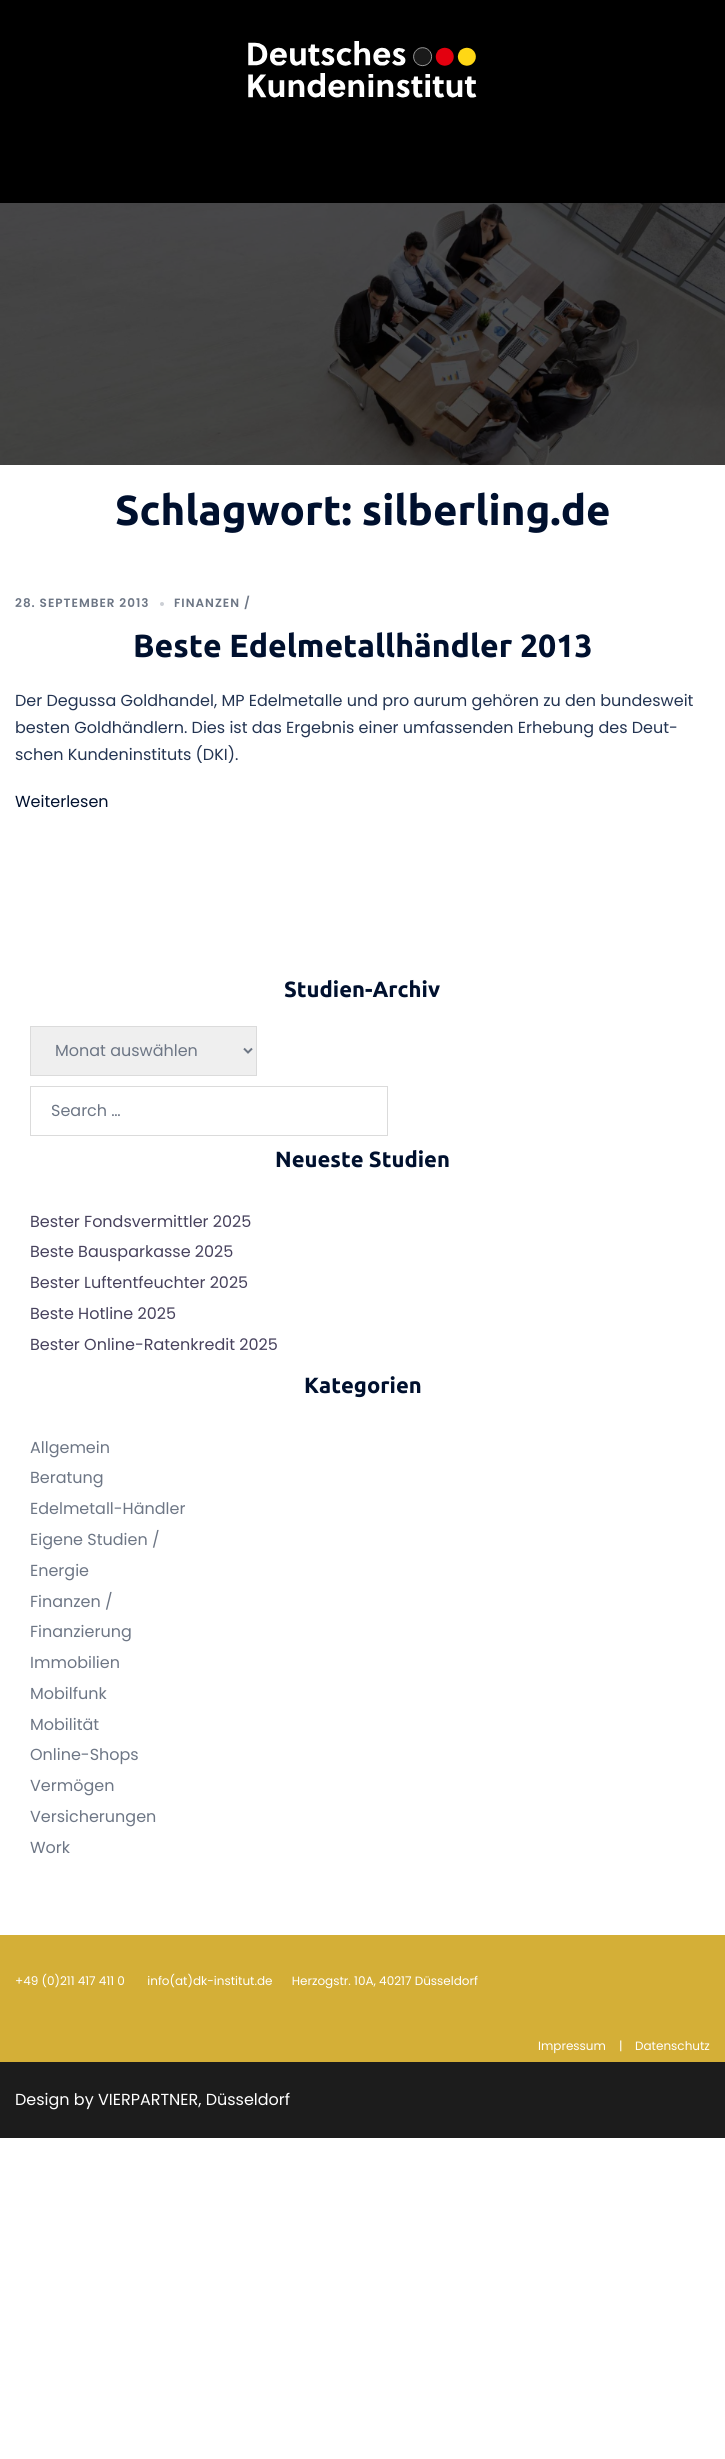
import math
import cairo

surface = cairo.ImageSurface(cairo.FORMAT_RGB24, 725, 2459)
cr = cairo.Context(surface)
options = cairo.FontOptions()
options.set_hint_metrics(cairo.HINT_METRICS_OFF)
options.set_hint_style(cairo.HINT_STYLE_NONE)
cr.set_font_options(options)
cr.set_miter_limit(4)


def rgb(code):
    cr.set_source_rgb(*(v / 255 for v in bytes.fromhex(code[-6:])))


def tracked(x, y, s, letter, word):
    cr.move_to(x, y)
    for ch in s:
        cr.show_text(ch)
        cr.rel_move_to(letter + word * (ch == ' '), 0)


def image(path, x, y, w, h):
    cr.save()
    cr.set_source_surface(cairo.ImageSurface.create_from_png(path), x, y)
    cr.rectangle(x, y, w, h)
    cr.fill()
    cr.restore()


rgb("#ffffff")
cr.paint()
rgb("#000000")
cr.rectangle(0, 0, 725, 203)
cr.fill()
image("img/1.png", 248, 41, 229, 57)
image("img/2.png", 0, 203, 725, 262)
rgb("#cccfd5")
cr.arc(162, 604, 2, 0, 2 * math.pi)
cr.fill()
rgb("#efefef")
cr.rectangle(30.5, 1026.5, 226, 49)
cr.fill_preserve()
rgb("#dbdbdb")
cr.set_line_width(1)
cr.stroke()
cr.new_path()
cr.move_to(244, 1048.5)
cr.line_to(248, 1052.5)
cr.line_to(252, 1048.5)
rgb("#6d7685")
cr.set_line_width(2)
cr.stroke()
cr.rectangle(30.5, 1086.5, 357, 49)
rgb("#dbdbdb")
cr.set_line_width(1)
cr.stroke()
rgb("#d4af37")
cr.rectangle(0, 1935, 725, 127)
cr.fill()
rgb("#1c1c1c")
cr.rectangle(0, 2062, 725, 76)
cr.fill()
cr.select_font_face("Ubuntu", cairo.FONT_SLANT_NORMAL, cairo.FONT_WEIGHT_BOLD)
cr.set_font_size(42)
rgb("#00102e")
cr.move_to(115, 525)
cr.show_text("Schlagwort: silberling.de")
cr.select_font_face("Poppins SemiBold")
cr.set_font_size(12)
rgb("#6d7685")
tracked(15, 607, "28. SEPTEMBER 2013", 1, 0)
tracked(174, 607, "FINANZEN /", 1, 0)
cr.select_font_face("Ubuntu", cairo.FONT_SLANT_NORMAL, cairo.FONT_WEIGHT_BOLD)
cr.set_font_size(32)
rgb("#00102e")
cr.move_to(133, 657)
cr.show_text("Beste Edelmetallhändler 2013")
cr.select_font_face("Poppins")
cr.set_font_size(16)
rgb("#233452")
for x, y, s in [
    (15, 706, "Der Degussa Goldhandel, MP Edelmetalle und pro aurum gehören zu den bundesweit"),
    (15, 733, "besten Goldhändlern. Dies ist das Ergebnis einer umfassenden Erhebung des Deut-"),
    (15, 760, "schen Kundeninstituts (DKI)."),
]:
    cr.move_to(x, y)
    cr.show_text(s)
rgb("#00102e")
cr.move_to(15, 807)
cr.show_text("Weiterlesen")
cr.select_font_face("Ubuntu", cairo.FONT_SLANT_NORMAL, cairo.FONT_WEIGHT_BOLD)
cr.set_font_size(22)
cr.move_to(284, 997)
cr.show_text("Studien-Archiv")
cr.select_font_face("Poppins")
cr.set_font_size(16)
rgb("#6d7685")
cr.move_to(55, 1056)
cr.show_text("Monat auswählen")
cr.move_to(51, 1116)
cr.show_text("Search …")
cr.select_font_face("Ubuntu", cairo.FONT_SLANT_NORMAL, cairo.FONT_WEIGHT_BOLD)
cr.set_font_size(22)
rgb("#00102e")
cr.move_to(275, 1167)
cr.show_text("Neueste Studien")
cr.select_font_face("Poppins")
cr.set_font_size(16)
rgb("#47425d")
for x, y, s in [
    (30, 1227, "Bester Fondsvermittler 2025"),
    (30, 1257, "Beste Bausparkasse 2025"),
    (30, 1288, "Bester Luftentfeuchter 2025"),
    (30, 1319, "Beste Hotline 2025"),
    (30, 1350, "Bester Online-Ratenkredit 2025"),
]:
    cr.move_to(x, y)
    cr.show_text(s)
cr.select_font_face("Ubuntu", cairo.FONT_SLANT_NORMAL, cairo.FONT_WEIGHT_BOLD)
cr.set_font_size(22)
rgb("#00102e")
cr.move_to(304, 1393)
cr.show_text("Kategorien")
cr.select_font_face("Poppins")
cr.set_font_size(16)
rgb("#6d7685")
for x, y, s in [
    (30, 1453, "Allgemein"),
    (30, 1483, "Beratung"),
    (30, 1514, "Edelmetall-Händler"),
    (30, 1545, "Eigene Studien /"),
    (30, 1576, "Energie"),
    (30, 1607, "Finanzen /"),
    (30, 1637, "Finanzierung"),
    (30, 1668, "Immobilien"),
    (30, 1699, "Mobilfunk"),
    (30, 1730, "Mobilität"),
    (30, 1760, "Online-Shops"),
    (30, 1791, "Vermögen"),
    (30, 1822, "Versicherungen"),
    (30, 1853, "Work"),
]:
    cr.move_to(x, y)
    cr.show_text(s)
cr.set_font_size(12)
rgb("#ffffff")
for x, y, s in [
    (15, 1985, "+49 (0)211 417 411 0       info(at)dk-institut.de      Herzogstr. 10A, 40217 Düsseldorf"),
    (538, 2050, "Impressum"),
    (619, 2050, "|"),
    (635, 2050, "Datenschutz"),
]:
    cr.move_to(x, y)
    cr.show_text(s)
cr.set_font_size(16)
cr.move_to(15, 2105)
cr.show_text("Design by VIERPARTNER, Düsseldorf")
surface.write_to_png("page.png")
